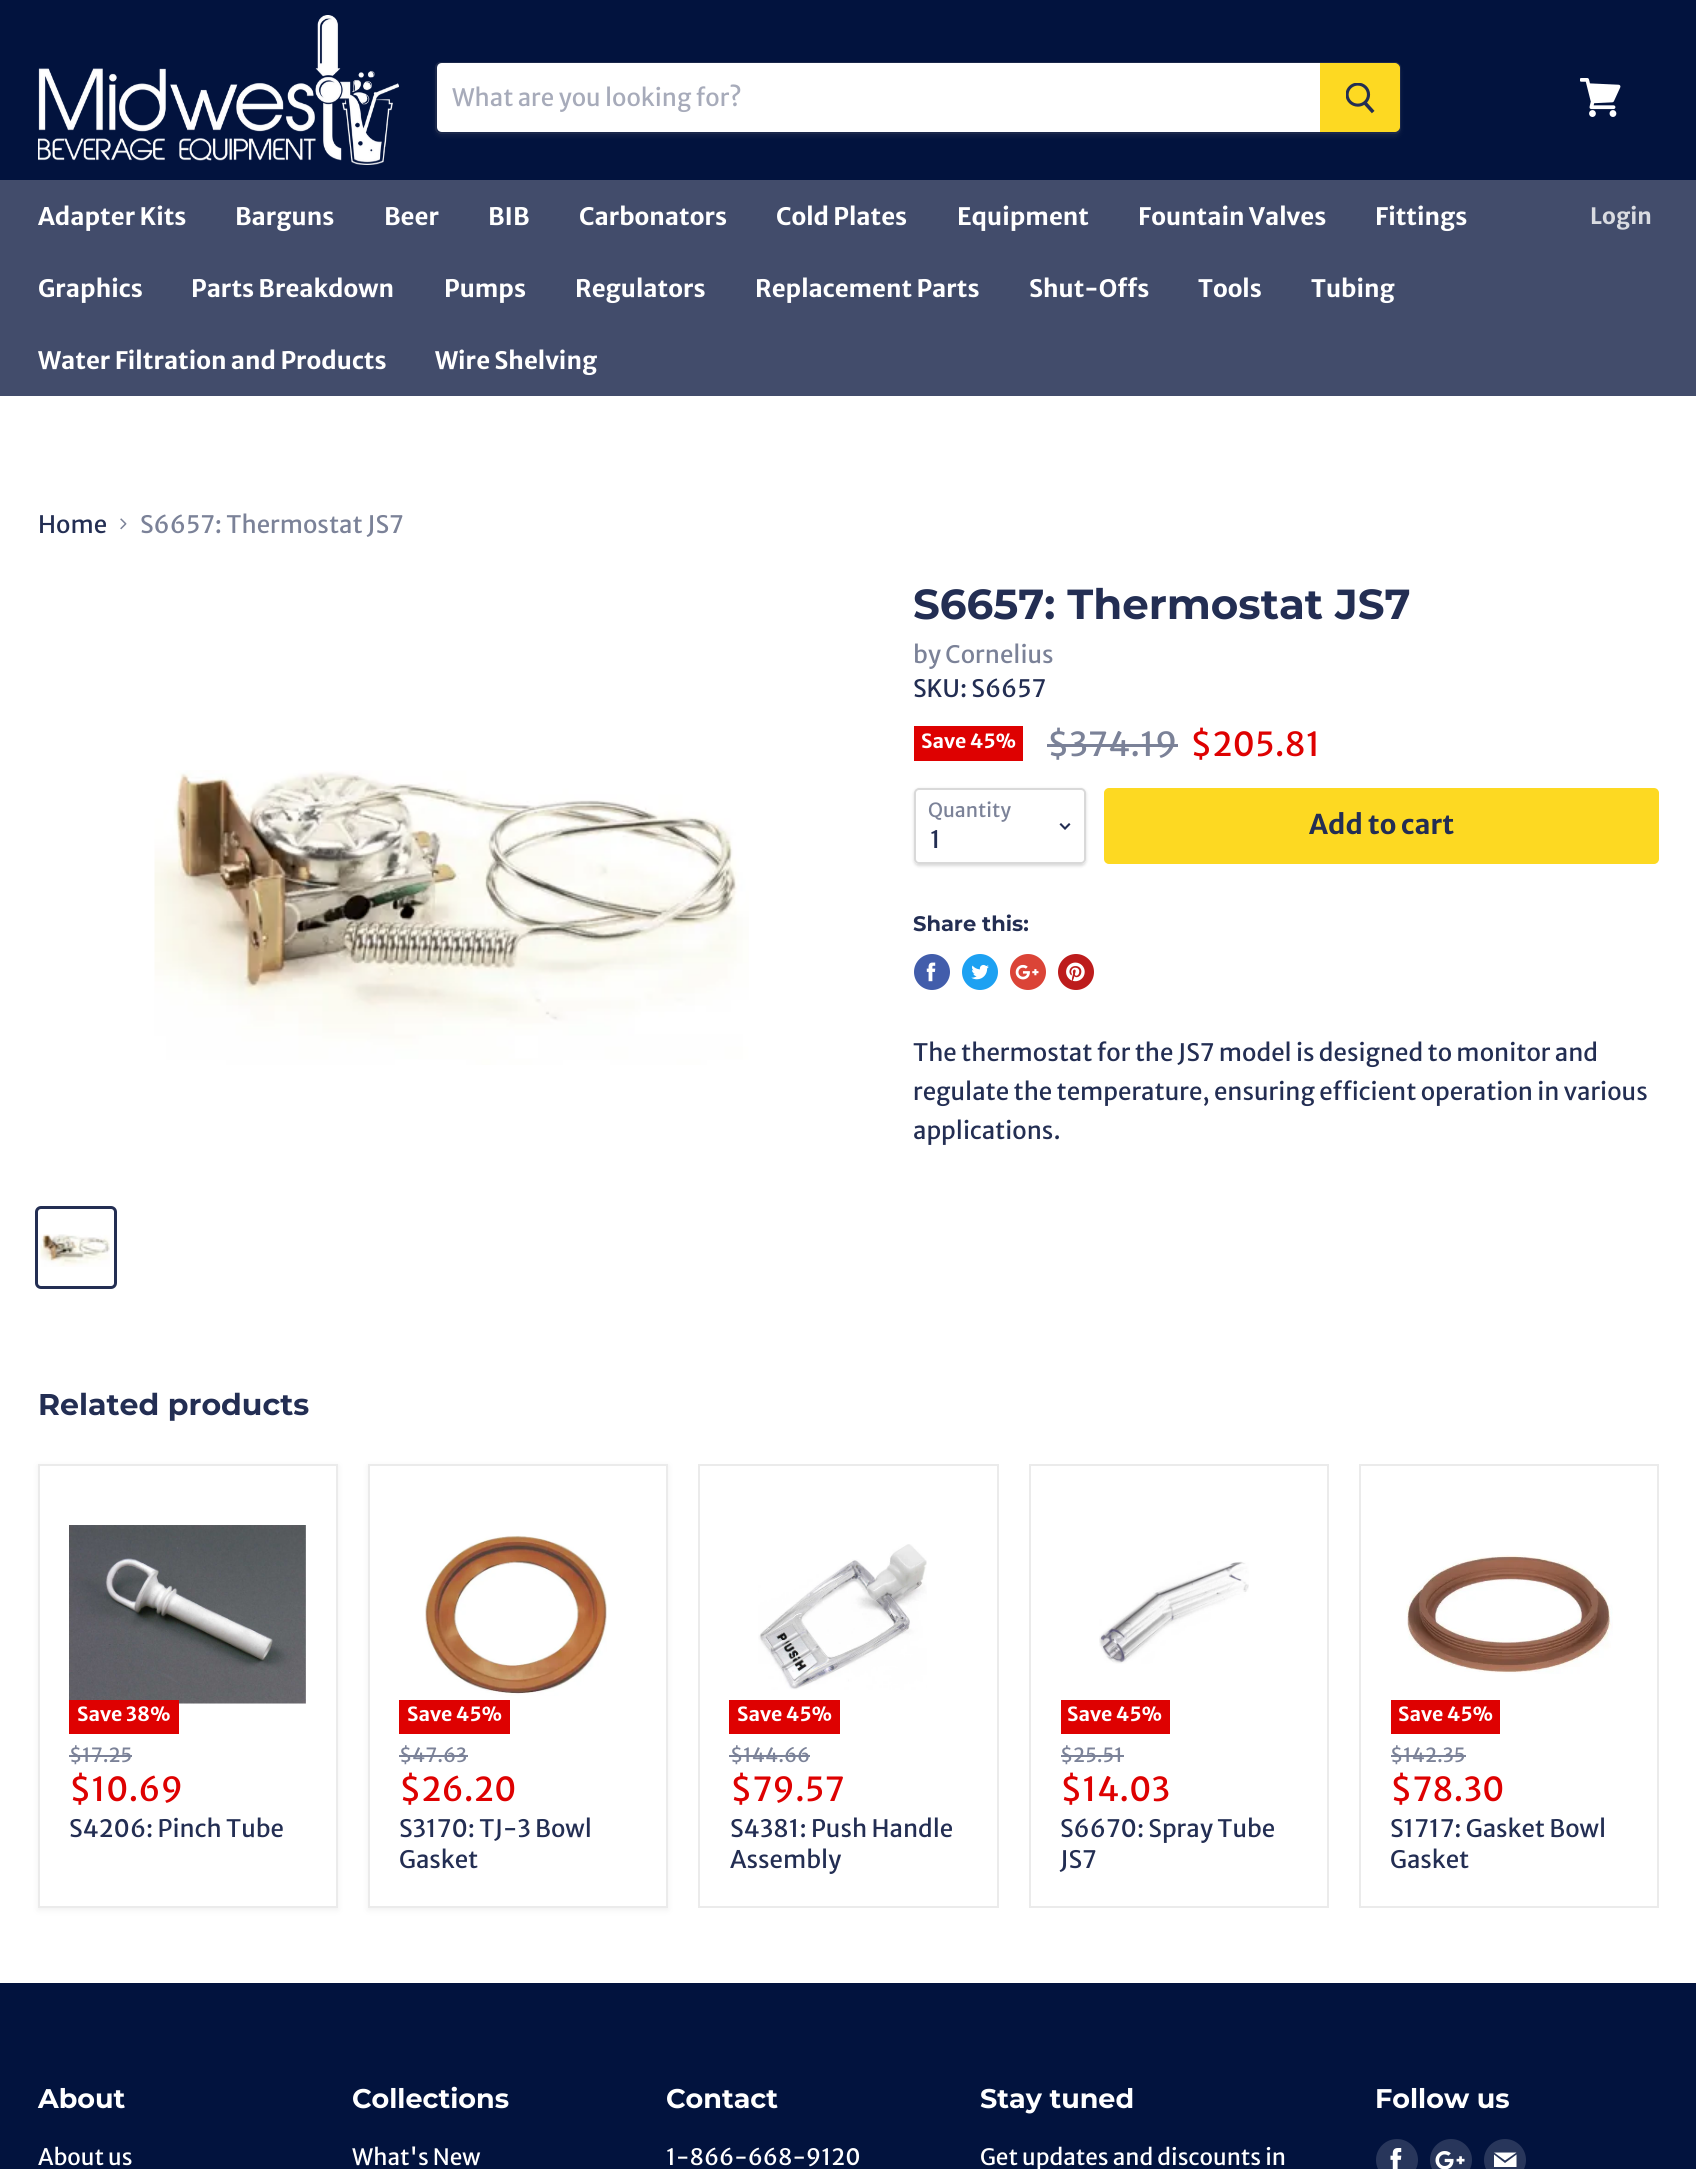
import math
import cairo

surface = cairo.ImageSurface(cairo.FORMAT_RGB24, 1696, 2169)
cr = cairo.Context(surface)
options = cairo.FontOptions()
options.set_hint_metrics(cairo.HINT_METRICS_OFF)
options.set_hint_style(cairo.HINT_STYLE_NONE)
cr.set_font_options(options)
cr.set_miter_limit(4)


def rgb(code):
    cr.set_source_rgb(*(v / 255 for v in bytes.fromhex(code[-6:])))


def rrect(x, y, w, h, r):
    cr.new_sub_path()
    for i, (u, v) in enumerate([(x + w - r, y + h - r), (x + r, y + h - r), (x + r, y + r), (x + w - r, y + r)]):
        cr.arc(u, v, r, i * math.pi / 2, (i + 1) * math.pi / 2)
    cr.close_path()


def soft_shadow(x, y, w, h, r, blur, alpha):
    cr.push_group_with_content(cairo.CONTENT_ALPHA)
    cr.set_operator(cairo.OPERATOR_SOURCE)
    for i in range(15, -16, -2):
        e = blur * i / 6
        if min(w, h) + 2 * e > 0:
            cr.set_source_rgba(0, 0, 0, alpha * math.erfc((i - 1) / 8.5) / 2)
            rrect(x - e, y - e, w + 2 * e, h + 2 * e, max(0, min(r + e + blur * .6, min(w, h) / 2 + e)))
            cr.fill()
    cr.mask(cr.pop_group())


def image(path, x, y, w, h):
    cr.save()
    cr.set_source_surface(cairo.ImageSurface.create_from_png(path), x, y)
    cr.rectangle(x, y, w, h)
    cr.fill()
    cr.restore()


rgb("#ffffff")
cr.paint()
rgb("#02133e")
cr.rectangle(0, 0, 1696, 180)
cr.fill()
image("img/1.png", 38, 15, 361, 150)
cr.save()
cr.set_fill_rule(cairo.FILL_RULE_EVEN_ODD)
cr.new_path()
cr.move_to(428, 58)
cr.line_to(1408, 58)
cr.line_to(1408, 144)
cr.line_to(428, 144)
cr.close_path()
cr.move_to(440, 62)
cr.line_to(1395, 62)
cr.curve_to(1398.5, 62, 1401, 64.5, 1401, 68)
cr.line_to(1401, 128)
cr.curve_to(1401, 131.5, 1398.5, 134, 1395, 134)
cr.line_to(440, 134)
cr.curve_to(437, 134, 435, 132, 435, 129)
cr.line_to(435, 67)
cr.curve_to(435, 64, 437, 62, 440, 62)
cr.close_path()
cr.clip()
rgb("#7f7f7f")
soft_shadow(435, 65, 966, 72, 6, 2, 0.11)
cr.restore()
cr.new_path()
cr.move_to(440, 63)
cr.line_to(1395, 63)
cr.curve_to(1398, 63, 1400, 65, 1400, 68)
cr.line_to(1400, 128)
cr.curve_to(1400, 131, 1398, 133, 1395, 133)
cr.line_to(440, 133)
cr.curve_to(438, 133, 436, 131, 436, 129)
cr.line_to(436, 67)
cr.curve_to(436, 65, 438, 63, 440, 63)
cr.close_path()
cr.set_source_rgba(0.498, 0.498, 0.498, 0.2)
cr.stroke()
rgb("#ffffff")
cr.new_path()
cr.move_to(442, 63)
cr.line_to(1320, 63)
cr.line_to(1320, 132)
cr.line_to(442, 132)
cr.curve_to(439, 132, 437, 130, 437, 127)
cr.line_to(437, 68)
cr.curve_to(437, 65, 439, 63, 442, 63)
cr.close_path()
cr.fill()
rgb("#fdd922")
cr.new_path()
cr.move_to(1321, 64)
cr.line_to(1395, 64)
cr.curve_to(1397, 64, 1399, 66, 1399, 68)
cr.line_to(1399, 127)
cr.curve_to(1399, 129, 1397, 131, 1395, 131)
cr.line_to(1321, 131)
cr.close_path()
cr.fill_preserve()
cr.stroke()
image("img/2.png", 1346, 83, 29, 31)
image("img/3.png", 1580, 78, 41, 39)
rgb("#424c6b")
cr.rectangle(0, 180, 1696, 216)
cr.fill()
image("img/4.png", 120, 518, 7, 12)
image("img/5.png", 154, 770, 595, 295)
rrect(36.5, 1207.5, 79, 80, 4.5)
rgb("#232e53")
cr.set_line_width(3)
cr.stroke()
image("img/6.png", 40, 1234, 70, 33)
rgb("#de0101")
cr.rectangle(914, 726, 109, 35)
cr.fill()
rgb("#7b8298")
cr.rectangle(1047, 744, 131, 3)
cr.fill()
cr.save()
cr.set_fill_rule(cairo.FILL_RULE_EVEN_ODD)
cr.new_path()
cr.move_to(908, 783)
cr.line_to(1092, 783)
cr.line_to(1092, 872)
cr.line_to(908, 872)
cr.close_path()
cr.move_to(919, 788)
cr.line_to(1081, 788)
cr.curve_to(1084, 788, 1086, 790, 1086, 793)
cr.line_to(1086, 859)
cr.curve_to(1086, 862, 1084, 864, 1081, 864)
cr.line_to(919, 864)
cr.curve_to(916, 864, 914, 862, 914, 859)
cr.line_to(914, 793)
cr.curve_to(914, 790, 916, 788, 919, 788)
cr.close_path()
cr.clip()
rgb("#000000")
soft_shadow(914, 789, 172, 77, 5, 1.5, 0.15)
cr.restore()
rrect(915, 789, 170, 74, 4)
cr.set_source_rgba(0.498, 0.498, 0.498, 0.3)
cr.set_line_width(2)
cr.stroke()
image("img/7.png", 1059, 823, 12, 7)
rgb("#fdd922")
rrect(1105, 789, 553, 74, 4)
cr.fill_preserve()
cr.stroke()
rgb("#425dab")
cr.arc(932, 972, 18, 0, 2 * math.pi)
cr.fill()
image("img/8.png", 926, 962, 10, 20)
rgb("#1da1f2")
cr.arc(980, 972, 18, 0, 2 * math.pi)
cr.fill()
image("img/9.png", 971, 964, 18, 16)
rgb("#db4437")
cr.arc(1028, 972, 18, 0, 2 * math.pi)
cr.fill()
image("img/10.png", 1015, 964, 24, 16)
rgb("#bd1c1c")
cr.arc(1076, 972, 18, 0, 2 * math.pi)
cr.fill()
image("img/11.png", 1066, 962, 19, 20)
rgb("#7f7f7f")
soft_shadow(38, 1466, 300, 444, 0, 3, 0.11)
rgb("#ffffff")
cr.rectangle(39, 1465, 298, 442)
cr.fill_preserve()
rgb("#ebebeb")
cr.stroke()
image("img/12.png", 69, 1525, 237, 179)
rgb("#de0101")
cr.rectangle(69, 1700, 110, 34)
cr.fill()
rgb("#7b8298")
cr.rectangle(69, 1755, 63, 2)
cr.fill()
rgb("#7f7f7f")
soft_shadow(368, 1466, 300, 444, 0, 3, 0.11)
rgb("#ffffff")
cr.rectangle(369, 1465, 298, 442)
cr.fill_preserve()
rgb("#ebebeb")
cr.stroke()
image("img/13.png", 425, 1535, 182, 161)
rgb("#de0101")
cr.rectangle(399, 1700, 111, 34)
cr.fill()
rgb("#7b8298")
cr.rectangle(399, 1755, 69, 2)
cr.fill()
cr.rectangle(699, 1465, 299, 442)
rgb("#ebebeb")
cr.stroke()
image("img/14.png", 758, 1544, 169, 146)
rgb("#de0101")
cr.rectangle(729, 1700, 111, 34)
cr.fill()
rgb("#7b8298")
cr.rectangle(729, 1755, 81, 2)
cr.fill()
cr.rectangle(1030, 1465, 298, 442)
rgb("#ebebeb")
cr.stroke()
image("img/15.png", 1099, 1561, 150, 103)
rgb("#de0101")
cr.rectangle(1061, 1700, 109, 34)
cr.fill()
rgb("#7b8298")
cr.rectangle(1061, 1755, 63, 2)
cr.fill()
cr.rectangle(1360, 1465, 298, 442)
rgb("#ebebeb")
cr.stroke()
image("img/16.png", 1406, 1555, 207, 119)
for x, y, w, h, color in [
    (1391, 1700, 109, 34, "#de0101"),
    (1391, 1755, 75, 2, "#7b8298"),
    (0, 1983, 1696, 186, "#02133e"),
]:
    rgb(color)
    cr.rectangle(x, y, w, h)
    cr.fill()
rgb("#28365b")
cr.arc(1397, 2160, 21, 0, 2 * math.pi)
cr.fill()
image("img/17.png", 1390, 2148, 12, 21)
cr.arc(1451, 2160, 21, 0, 2 * math.pi)
cr.fill()
image("img/18.png", 1435, 2151, 30, 18)
cr.arc(1505, 2160, 21, 0, 2 * math.pi)
cr.fill()
rgb("#ffffff")
cr.set_fill_rule(cairo.FILL_RULE_EVEN_ODD)
cr.new_path()
cr.move_to(1516.5, 2152.5)
cr.line_to(1494, 2152.5)
cr.line_to(1505, 2160.5)
cr.close_path()
cr.move_to(1505, 2163)
cr.line_to(1494, 2154.5)
cr.line_to(1494, 2167)
cr.line_to(1516.5, 2167)
cr.line_to(1516.5, 2154.5)
cr.close_path()
cr.fill()
cr.select_font_face("Merriweather Sans")
cr.set_font_size(24)
rgb("#a7abba")
cr.move_to(452, 106)
cr.show_text("What are you looking for?")
cr.select_font_face("Merriweather Sans", cairo.FONT_SLANT_NORMAL, cairo.FONT_WEIGHT_BOLD)
rgb("#ffffff")
for x, y, s in [
    (38, 225, "Adapter Kits"),
    (235, 225, "Barguns"),
    (384, 225, "Beer"),
    (488, 225, "BIB"),
    (579, 225, "Carbonators"),
    (776, 225, "Cold Plates"),
    (957, 225, "Equipment"),
    (1138, 225, "Fountain Valves"),
    (1375, 225, "Fittings"),
    (38, 297, "Graphics"),
    (191, 297, "Parts Breakdown"),
    (444, 297, "Pumps"),
    (575, 297, "Regulators"),
    (755, 297, "Replacement Parts"),
    (1029, 297, "Shut-Offs"),
    (1198, 297, "Tools"),
    (1311, 297, "Tubing"),
    (38, 369, "Water Filtration and Products"),
    (435, 369, "Wire Shelving"),
]:
    cr.move_to(x, y)
    cr.show_text(s)
cr.set_font_size(22.5)
rgb("#d9dbe1")
cr.move_to(1590, 224)
cr.show_text("Login")
cr.select_font_face("Merriweather Sans")
cr.set_font_size(24)
rgb("#232e53")
cr.move_to(38, 533)
cr.show_text("Home")
rgb("#7b8298")
cr.move_to(140, 533)
cr.show_text("S6657: Thermostat JS7")
cr.select_font_face("Montserrat", cairo.FONT_SLANT_NORMAL, cairo.FONT_WEIGHT_BOLD)
cr.set_font_size(42)
rgb("#232e53")
cr.move_to(913, 619)
cr.show_text("S6657: Thermostat JS7")
cr.select_font_face("Merriweather Sans")
cr.set_font_size(24)
rgb("#7b8298")
cr.move_to(913, 663)
cr.show_text("by Cornelius")
rgb("#232e53")
cr.move_to(913, 697)
cr.show_text("SKU: S6657")
cr.select_font_face("Merriweather Sans", cairo.FONT_SLANT_NORMAL, cairo.FONT_WEIGHT_BOLD)
cr.set_font_size(19.5)
rgb("#ffffff")
cr.move_to(921, 748)
cr.show_text("Save 45%")
cr.select_font_face("Merriweather Sans")
cr.set_font_size(33)
rgb("#7b8298")
cr.move_to(1047, 756)
cr.show_text("$374.19")
rgb("#de0101")
cr.move_to(1190, 756)
cr.show_text("$205.81")
cr.set_font_size(19.5)
rgb("#7b8298")
cr.move_to(928, 817)
cr.show_text("Quantity")
cr.set_font_size(24)
rgb("#232e53")
cr.move_to(930, 848)
cr.show_text("1")
cr.select_font_face("Merriweather Sans", cairo.FONT_SLANT_NORMAL, cairo.FONT_WEIGHT_BOLD)
cr.set_font_size(27)
cr.move_to(1309, 834)
cr.show_text("Add to cart")
cr.select_font_face("Montserrat", cairo.FONT_SLANT_NORMAL, cairo.FONT_WEIGHT_BOLD)
cr.set_font_size(21)
cr.move_to(913, 931)
cr.show_text("Share this:")
cr.select_font_face("Merriweather Sans")
cr.set_font_size(24)
for x, y, s in [
    (913, 1061, "The thermostat for the JS7 model is designed to monitor and"),
    (913, 1100, "regulate the temperature, ensuring efficient operation in various"),
    (913, 1139, "applications."),
]:
    cr.move_to(x, y)
    cr.show_text(s)
cr.select_font_face("Montserrat", cairo.FONT_SLANT_NORMAL, cairo.FONT_WEIGHT_BOLD)
cr.set_font_size(30)
cr.move_to(38, 1415)
cr.show_text("Related products")
cr.select_font_face("Merriweather Sans", cairo.FONT_SLANT_NORMAL, cairo.FONT_WEIGHT_BOLD)
cr.set_font_size(19.5)
rgb("#ffffff")
cr.move_to(77, 1721)
cr.show_text("Save 38%")
cr.select_font_face("Merriweather Sans")
rgb("#7b8298")
cr.move_to(69, 1762)
cr.show_text("$17.25")
cr.set_font_size(33)
rgb("#de0101")
cr.move_to(69, 1801)
cr.show_text("$10.69")
cr.set_font_size(24)
rgb("#232e53")
cr.move_to(69, 1837)
cr.show_text("S4206: Pinch Tube")
cr.select_font_face("Merriweather Sans", cairo.FONT_SLANT_NORMAL, cairo.FONT_WEIGHT_BOLD)
cr.set_font_size(19.5)
rgb("#ffffff")
cr.move_to(407, 1721)
cr.show_text("Save 45%")
cr.select_font_face("Merriweather Sans")
rgb("#7b8298")
cr.move_to(399, 1762)
cr.show_text("$47.63")
cr.set_font_size(33)
rgb("#de0101")
cr.move_to(399, 1801)
cr.show_text("$26.20")
cr.set_font_size(24)
rgb("#232e53")
cr.move_to(399, 1837)
cr.show_text("S3170: TJ-3 Bowl")
cr.move_to(399, 1868)
cr.show_text("Gasket")
cr.select_font_face("Merriweather Sans", cairo.FONT_SLANT_NORMAL, cairo.FONT_WEIGHT_BOLD)
cr.set_font_size(19.5)
rgb("#ffffff")
cr.move_to(737, 1721)
cr.show_text("Save 45%")
cr.select_font_face("Merriweather Sans")
rgb("#7b8298")
cr.move_to(730, 1762)
cr.show_text("$144.66")
cr.set_font_size(33)
rgb("#de0101")
cr.move_to(730, 1801)
cr.show_text("$79.57")
cr.set_font_size(24)
rgb("#232e53")
cr.move_to(730, 1837)
cr.show_text("S4381: Push Handle")
cr.move_to(730, 1868)
cr.show_text("Assembly")
cr.select_font_face("Merriweather Sans", cairo.FONT_SLANT_NORMAL, cairo.FONT_WEIGHT_BOLD)
cr.set_font_size(19.5)
rgb("#ffffff")
cr.move_to(1067, 1721)
cr.show_text("Save 45%")
cr.select_font_face("Merriweather Sans")
rgb("#7b8298")
cr.move_to(1060, 1762)
cr.show_text("$25.51")
cr.set_font_size(33)
rgb("#de0101")
cr.move_to(1060, 1801)
cr.show_text("$14.03")
cr.set_font_size(24)
rgb("#232e53")
cr.move_to(1060, 1837)
cr.show_text("S6670: Spray Tube")
cr.move_to(1060, 1868)
cr.show_text("JS7")
cr.select_font_face("Merriweather Sans", cairo.FONT_SLANT_NORMAL, cairo.FONT_WEIGHT_BOLD)
cr.set_font_size(19.5)
rgb("#ffffff")
cr.move_to(1398, 1721)
cr.show_text("Save 45%")
cr.select_font_face("Merriweather Sans")
rgb("#7b8298")
cr.move_to(1390, 1762)
cr.show_text("$142.35")
cr.set_font_size(33)
rgb("#de0101")
cr.move_to(1390, 1801)
cr.show_text("$78.30")
cr.set_font_size(24)
rgb("#232e53")
cr.move_to(1390, 1837)
cr.show_text("S1717: Gasket Bowl")
cr.move_to(1390, 1868)
cr.show_text("Gasket")
cr.select_font_face("Montserrat", cairo.FONT_SLANT_NORMAL, cairo.FONT_WEIGHT_BOLD)
cr.set_font_size(27)
rgb("#ffffff")
cr.move_to(38, 2108)
cr.show_text("About")
cr.select_font_face("Merriweather Sans")
cr.set_font_size(22.5)
cr.move_to(38, 2165)
cr.show_text("About us")
cr.select_font_face("Montserrat", cairo.FONT_SLANT_NORMAL, cairo.FONT_WEIGHT_BOLD)
cr.set_font_size(27)
cr.move_to(352, 2108)
cr.show_text("Collections")
cr.select_font_face("Merriweather Sans")
cr.set_font_size(22.5)
cr.move_to(352, 2165)
cr.show_text("What's New")
cr.select_font_face("Montserrat", cairo.FONT_SLANT_NORMAL, cairo.FONT_WEIGHT_BOLD)
cr.set_font_size(27)
cr.move_to(666, 2108)
cr.show_text("Contact")
cr.select_font_face("Merriweather Sans")
cr.set_font_size(22.5)
cr.move_to(666, 2165)
cr.show_text("1-866-668-9120")
cr.select_font_face("Montserrat", cairo.FONT_SLANT_NORMAL, cairo.FONT_WEIGHT_BOLD)
cr.set_font_size(27)
cr.move_to(980, 2108)
cr.show_text("Stay tuned")
cr.select_font_face("Merriweather Sans")
cr.set_font_size(22.5)
cr.move_to(980, 2165)
cr.show_text("Get updates and discounts in")
cr.select_font_face("Montserrat", cairo.FONT_SLANT_NORMAL, cairo.FONT_WEIGHT_BOLD)
cr.set_font_size(27)
cr.move_to(1375, 2108)
cr.show_text("Follow us")
surface.write_to_png("page.png")
